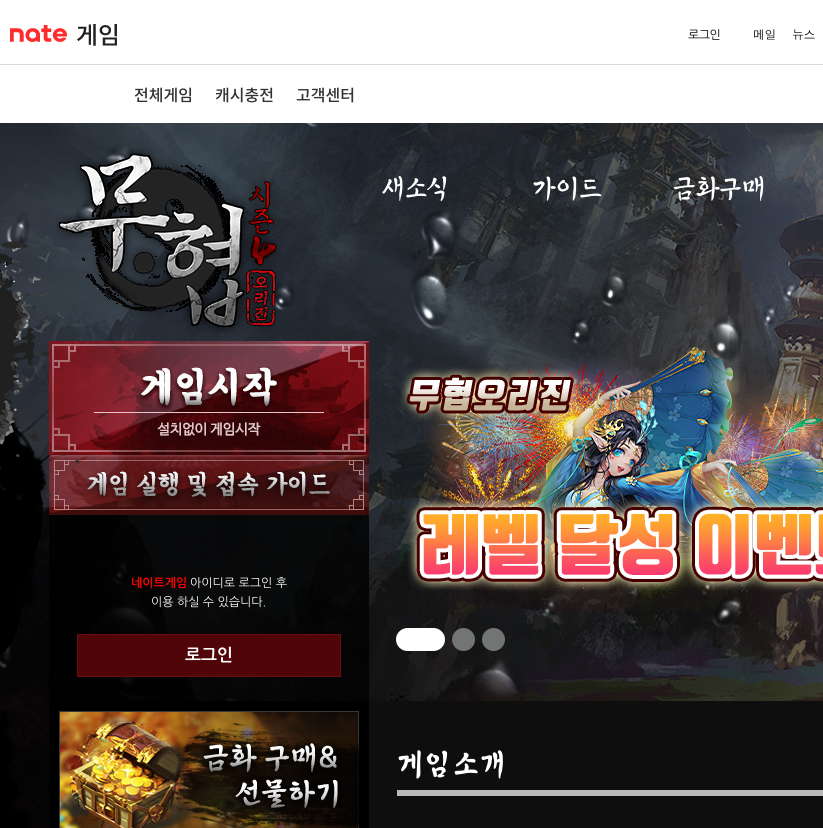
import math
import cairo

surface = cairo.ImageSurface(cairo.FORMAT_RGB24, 823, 828)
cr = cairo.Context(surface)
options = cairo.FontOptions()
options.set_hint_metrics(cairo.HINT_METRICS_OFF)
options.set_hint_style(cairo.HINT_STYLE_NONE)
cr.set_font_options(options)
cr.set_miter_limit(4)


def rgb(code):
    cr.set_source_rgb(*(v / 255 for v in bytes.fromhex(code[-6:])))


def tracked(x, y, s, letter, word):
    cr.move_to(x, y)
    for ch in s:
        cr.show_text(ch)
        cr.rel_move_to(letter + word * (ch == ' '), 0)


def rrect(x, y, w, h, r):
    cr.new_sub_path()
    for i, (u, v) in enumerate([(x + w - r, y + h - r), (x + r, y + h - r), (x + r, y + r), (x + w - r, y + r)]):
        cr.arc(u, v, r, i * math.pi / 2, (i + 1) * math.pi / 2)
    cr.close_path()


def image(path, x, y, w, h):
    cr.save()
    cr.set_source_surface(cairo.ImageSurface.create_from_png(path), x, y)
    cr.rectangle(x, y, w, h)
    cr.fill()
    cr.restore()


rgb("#ffffff")
cr.paint()
image("img/1.png", 0, 123, 823, 705)
rgb("#dadada")
cr.rectangle(0, 64, 823, 1)
cr.fill()
image("img/2.png", 10, 25, 57, 17)
image("img/3.png", 77, 24, 40, 22)
image("img/7.png", 49, 455, 320, 60)
cr.set_source_rgba(0, 0, 0, 0.8)
cr.rectangle(49, 515, 320, 186)
cr.fill()
rgb("#500509")
cr.rectangle(77.5, 634.5, 263, 42)
cr.fill_preserve()
rgb("#6b0c11")
cr.set_line_width(1)
cr.stroke()
image("img/5.png", 0, 181, 80, 647)
image("img/4.png", 55, 147, 228, 187)
image("img/6.png", 49, 341, 320, 114)
image("img/8.png", 400, 347, 423, 264)
rgb("#ffffff")
rrect(396, 628, 49, 23, 11.5)
cr.fill()
rgb("#737574")
cr.arc(463.5, 639.5, 11.5, 0, 2 * math.pi)
cr.fill()
cr.arc(493.5, 639.5, 11.5, 0, 2 * math.pi)
cr.fill()
rgb("#000000")
cr.rectangle(49, 701, 320, 127)
cr.fill()
image("img/9.png", 59, 711, 300, 117)
rgb("#0e0e0e")
cr.rectangle(369, 701, 454, 127)
cr.fill()
rgb("#bab8b9")
cr.rectangle(397, 790, 426, 6)
cr.fill()
cr.select_font_face("NanumGothic")
cr.set_font_size(12)
rgb("#000000")
tracked(688, 39, "로그인", -0.5, 0)
cr.select_font_face("Dotum")
tracked(753, 39, "메일", -0.5, 0)
tracked(792, 39, "뉴스", -0.5, 0)
cr.select_font_face("Noto Sans KR Medium")
cr.set_font_size(16)
rgb("#333333")
for x, y, s in [
    (134, 101, "전체게임"),
    (215, 101, "캐시충전"),
    (296, 101, "고객센터"),
]:
    cr.move_to(x, y)
    cr.show_text(s)
cr.select_font_face("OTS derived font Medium")
cr.set_font_size(26.5)
rgb("#ffffff")
for x, y, s in [
    (381, 196, "새소식"),
    (532, 196, "가이드"),
    (673, 196, "금화구매"),
]:
    cr.move_to(x, y)
    cr.show_text(s)
cr.select_font_face("NanumGothic", cairo.FONT_SLANT_NORMAL, cairo.FONT_WEIGHT_BOLD)
cr.set_font_size(12)
rgb("#ff0000")
cr.move_to(131, 587)
cr.show_text("네이트게임")
cr.select_font_face("NanumGothic")
rgb("#ffffff")
cr.move_to(190, 587)
cr.show_text("아이디로 로그인 후")
cr.move_to(151, 606)
cr.show_text("이용 하실 수 있습니다.")
cr.select_font_face("NanumGothic", cairo.FONT_SLANT_NORMAL, cairo.FONT_WEIGHT_BOLD)
cr.set_font_size(17)
cr.move_to(185, 661)
cr.show_text("로그인")
cr.select_font_face("OTS derived font", cairo.FONT_SLANT_NORMAL, cairo.FONT_WEIGHT_BOLD)
cr.set_font_size(29)
tracked(397, 773, "게임소개", 2.5, 0)
surface.write_to_png("page.png")
